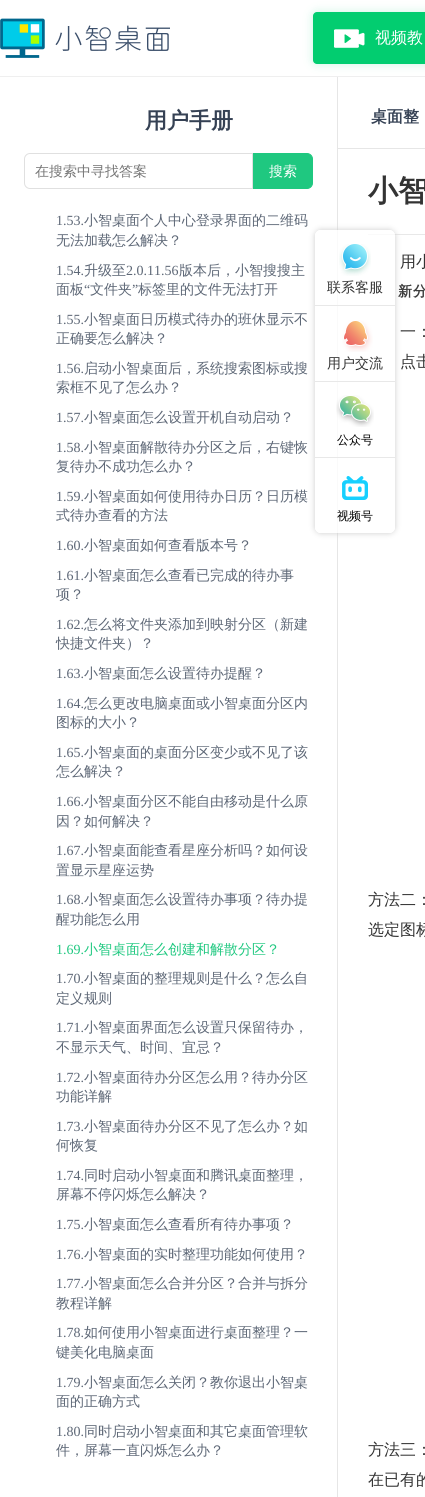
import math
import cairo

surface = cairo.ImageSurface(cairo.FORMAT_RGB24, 425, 1497)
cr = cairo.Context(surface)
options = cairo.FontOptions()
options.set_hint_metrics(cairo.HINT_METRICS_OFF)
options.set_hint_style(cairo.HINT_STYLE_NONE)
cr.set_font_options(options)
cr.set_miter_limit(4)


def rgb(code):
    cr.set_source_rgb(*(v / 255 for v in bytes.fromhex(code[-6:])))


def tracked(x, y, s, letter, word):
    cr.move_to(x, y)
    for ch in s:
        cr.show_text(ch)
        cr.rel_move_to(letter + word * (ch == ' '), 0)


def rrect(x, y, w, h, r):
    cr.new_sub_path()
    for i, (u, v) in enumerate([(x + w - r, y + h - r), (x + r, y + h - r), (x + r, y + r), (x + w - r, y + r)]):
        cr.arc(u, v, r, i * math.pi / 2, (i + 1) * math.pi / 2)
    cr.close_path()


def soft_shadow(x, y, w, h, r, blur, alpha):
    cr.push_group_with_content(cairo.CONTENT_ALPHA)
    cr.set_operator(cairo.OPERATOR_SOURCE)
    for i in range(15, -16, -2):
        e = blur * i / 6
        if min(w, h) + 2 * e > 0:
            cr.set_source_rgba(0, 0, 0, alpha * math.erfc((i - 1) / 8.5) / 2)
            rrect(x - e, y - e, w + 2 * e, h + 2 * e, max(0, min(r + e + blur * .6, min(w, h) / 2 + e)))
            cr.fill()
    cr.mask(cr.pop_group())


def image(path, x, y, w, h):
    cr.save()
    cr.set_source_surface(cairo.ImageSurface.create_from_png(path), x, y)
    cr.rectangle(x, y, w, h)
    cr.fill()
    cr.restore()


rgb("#ffffff")
cr.paint()
rgb("#efefef")
cr.rectangle(0, 76, 425, 1)
cr.fill()
image("img/1.png", 0, 18, 170, 40)
rgb("#e6e6e6")
cr.rectangle(337, 77, 1, 1420)
cr.fill()
rgb("#02cd70")
soft_shadow(313, 12, 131, 52, 4, 5, 0.2)
rgb("#02cd70")
rrect(313, 12, 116, 52, 4)
cr.fill()
image("img/2.png", 334, 29, 31, 19)
rgb("#fafafa")
cr.rectangle(337, 382, 1, 76)
cr.fill()
rgb("#e8e8e8")
cr.rectangle(368, 234, 57, 1)
cr.fill()
cr.save()
cr.set_fill_rule(cairo.FILL_RULE_EVEN_ODD)
cr.new_path()
cr.move_to(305, 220)
cr.line_to(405, 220)
cr.line_to(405, 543)
cr.line_to(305, 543)
cr.close_path()
cr.move_to(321, 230)
cr.line_to(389, 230)
cr.curve_to(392.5, 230, 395, 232.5, 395, 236)
cr.line_to(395, 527)
cr.curve_to(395, 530.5, 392.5, 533, 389, 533)
cr.line_to(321, 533)
cr.curve_to(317.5, 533, 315, 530.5, 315, 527)
cr.line_to(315, 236)
cr.curve_to(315, 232.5, 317.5, 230, 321, 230)
cr.close_path()
cr.clip()
rgb("#cccccc")
soft_shadow(315, 230, 80, 303, 6, 3, 1)
cr.restore()
cr.set_source_rgba(1, 1, 1, 0.8)
cr.new_path()
cr.move_to(321, 230)
cr.line_to(389, 230)
cr.curve_to(392.5, 230, 395, 232.5, 395, 236)
cr.line_to(395, 306)
cr.line_to(315, 306)
cr.line_to(315, 236)
cr.curve_to(315, 232.5, 317.5, 230, 321, 230)
cr.close_path()
cr.fill()
rgb("#e8e8e8")
cr.rectangle(315, 305, 80, 1)
cr.fill()
image("img/3.png", 339, 244, 32, 32)
cr.set_source_rgba(1, 1, 1, 0.8)
cr.rectangle(337, 306, 1, 75)
cr.fill()
rgb("#e8e8e8")
cr.rectangle(315, 381, 80, 1)
cr.fill()
image("img/4.png", 342, 320, 31, 32)
cr.rectangle(315, 457, 80, 1)
cr.fill()
image("img/5.png", 336, 395, 38, 32)
cr.set_source_rgba(1, 1, 1, 0.8)
cr.new_path()
cr.move_to(315, 458)
cr.line_to(395, 458)
cr.line_to(395, 527)
cr.curve_to(395, 530.5, 392.5, 533, 389, 533)
cr.line_to(321, 533)
cr.curve_to(317.5, 533, 315, 530.5, 315, 527)
cr.close_path()
cr.fill()
image("img/6.png", 342, 476, 26, 24)
cr.new_path()
cr.move_to(30, 153.5)
cr.line_to(252.5, 153.5)
cr.line_to(252.5, 188.5)
cr.line_to(30, 188.5)
cr.curve_to(27, 188.5, 24.5, 186, 24.5, 183)
cr.line_to(24.5, 159)
cr.curve_to(24.5, 156, 27, 153.5, 30, 153.5)
cr.close_path()
rgb("#e0e0e0")
cr.set_line_width(1)
cr.stroke()
rgb("#1fc880")
cr.new_path()
cr.move_to(253.5, 153.5)
cr.line_to(307, 153.5)
cr.curve_to(310, 153.5, 312.5, 156, 312.5, 159)
cr.line_to(312.5, 183)
cr.curve_to(312.5, 186, 310, 188.5, 307, 188.5)
cr.line_to(253.5, 188.5)
cr.close_path()
cr.fill_preserve()
cr.stroke()
rgb("#e6e6e6")
cr.rectangle(338, 148, 87, 1)
cr.fill()
cr.select_font_face("WenQuanYi Zen Hei Medium")
cr.set_font_size(16)
rgb("#ffffff")
cr.move_to(375, 43)
cr.show_text("视频教")
cr.set_font_size(14)
rgb("#333333")
cr.move_to(327, 292)
cr.show_text("联系客服")
cr.move_to(327, 368)
cr.show_text("用户交流")
cr.set_font_size(12)
rgb("#000000")
cr.move_to(337, 444)
cr.show_text("公众号")
cr.move_to(337, 520)
cr.show_text("视频号")
cr.select_font_face("WenQuanYi Zen Hei", cairo.FONT_SLANT_NORMAL, cairo.FONT_WEIGHT_BOLD)
cr.set_font_size(22)
rgb("#354154")
cr.move_to(145, 128)
cr.show_text("用户手册")
cr.select_font_face("WenQuanYi Zen Hei Medium")
cr.set_font_size(14)
rgb("#757575")
cr.move_to(35, 176)
cr.show_text("在搜索中寻找答案")
rgb("#ffffff")
cr.move_to(269, 176)
cr.show_text("搜索")
cr.select_font_face("Liberation Serif")
rgb("#5d6776")
cr.move_to(56, 225)
cr.show_text("1.53.")
cr.select_font_face("WenQuanYi Zen Hei Medium")
cr.move_to(84, 225)
cr.show_text("小智桌面个人中心登录界面的二维码")
cr.move_to(56, 245)
cr.show_text("无法加载怎么解决？")
cr.select_font_face("Liberation Serif")
cr.move_to(56, 275)
cr.show_text("1.54.")
cr.select_font_face("WenQuanYi Zen Hei Medium")
cr.move_to(84, 275)
cr.show_text("升级至")
cr.select_font_face("Liberation Serif")
cr.move_to(126, 275)
cr.show_text("2.0.11.56")
cr.select_font_face("WenQuanYi Zen Hei Medium")
cr.move_to(179, 275)
cr.show_text("版本后，小智搜搜主")
cr.move_to(56, 294)
cr.show_text("面板")
cr.select_font_face("Liberation Serif")
cr.move_to(84, 294)
cr.show_text("“")
cr.select_font_face("WenQuanYi Zen Hei Medium")
cr.move_to(90, 294)
cr.show_text("文件夹")
cr.select_font_face("Liberation Serif")
cr.move_to(132, 294)
cr.show_text("”")
cr.select_font_face("WenQuanYi Zen Hei Medium")
cr.move_to(138, 294)
cr.show_text("标签里的文件无法打开")
cr.select_font_face("Liberation Serif")
cr.move_to(56, 324)
cr.show_text("1.55.")
cr.select_font_face("WenQuanYi Zen Hei Medium")
cr.move_to(84, 324)
cr.show_text("小智桌面日历模式待办的班休显示不")
cr.move_to(56, 343)
cr.show_text("正确要怎么解决？")
cr.select_font_face("Liberation Serif")
cr.move_to(56, 373)
cr.show_text("1.56.")
cr.select_font_face("WenQuanYi Zen Hei Medium")
cr.move_to(84, 373)
cr.show_text("启动小智桌面后，系统搜索图标或搜")
cr.move_to(56, 392)
cr.show_text("索框不见了怎么办？")
cr.select_font_face("Liberation Serif")
cr.move_to(56, 422)
cr.show_text("1.57.")
cr.select_font_face("WenQuanYi Zen Hei Medium")
cr.move_to(84, 422)
cr.show_text("小智桌面怎么设置开机自动启动？")
cr.select_font_face("Liberation Serif")
cr.move_to(56, 452)
cr.show_text("1.58.")
cr.select_font_face("WenQuanYi Zen Hei Medium")
cr.move_to(84, 452)
cr.show_text("小智桌面解散待办分区之后，右键恢")
cr.move_to(56, 471)
cr.show_text("复待办不成功怎么办？")
cr.select_font_face("Liberation Serif")
cr.move_to(56, 501)
cr.show_text("1.59.")
cr.select_font_face("WenQuanYi Zen Hei Medium")
cr.move_to(84, 501)
cr.show_text("小智桌面如何使用待办日历？日历模")
cr.move_to(56, 520)
cr.show_text("式待办查看的方法")
cr.select_font_face("Liberation Serif")
cr.move_to(56, 550)
cr.show_text("1.60.")
cr.select_font_face("WenQuanYi Zen Hei Medium")
cr.move_to(84, 550)
cr.show_text("小智桌面如何查看版本号？")
cr.select_font_face("Liberation Serif")
cr.move_to(56, 580)
cr.show_text("1.61.")
cr.select_font_face("WenQuanYi Zen Hei Medium")
cr.move_to(84, 580)
cr.show_text("小智桌面怎么查看已完成的待办事")
cr.move_to(56, 599)
cr.show_text("项？")
cr.select_font_face("Liberation Serif")
cr.move_to(56, 629)
cr.show_text("1.62.")
cr.select_font_face("WenQuanYi Zen Hei Medium")
cr.move_to(84, 629)
cr.show_text("怎么将文件夹添加到映射分区（新建")
cr.move_to(56, 648)
cr.show_text("快捷文件夹）？")
cr.select_font_face("Liberation Serif")
cr.move_to(56, 678)
cr.show_text("1.63.")
cr.select_font_face("WenQuanYi Zen Hei Medium")
cr.move_to(84, 678)
cr.show_text("小智桌面怎么设置待办提醒？")
cr.select_font_face("Liberation Serif")
cr.move_to(56, 708)
cr.show_text("1.64.")
cr.select_font_face("WenQuanYi Zen Hei Medium")
cr.move_to(84, 708)
cr.show_text("怎么更改电脑桌面或小智桌面分区内")
cr.move_to(56, 727)
cr.show_text("图标的大小？")
cr.select_font_face("Liberation Serif")
cr.move_to(56, 757)
cr.show_text("1.65.")
cr.select_font_face("WenQuanYi Zen Hei Medium")
cr.move_to(84, 757)
cr.show_text("小智桌面的桌面分区变少或不见了该")
cr.move_to(56, 776)
cr.show_text("怎么解决？")
cr.select_font_face("Liberation Serif")
cr.move_to(56, 806)
cr.show_text("1.66.")
cr.select_font_face("WenQuanYi Zen Hei Medium")
cr.move_to(84, 806)
cr.show_text("小智桌面分区不能自由移动是什么原")
cr.move_to(56, 826)
cr.show_text("因？如何解决？")
cr.select_font_face("Liberation Serif")
cr.move_to(56, 855)
cr.show_text("1.67.")
cr.select_font_face("WenQuanYi Zen Hei Medium")
cr.move_to(84, 855)
cr.show_text("小智桌面能查看星座分析吗？如何设")
cr.move_to(56, 875)
cr.show_text("置显示星座运势")
cr.select_font_face("Liberation Serif")
cr.move_to(56, 904)
cr.show_text("1.68.")
cr.select_font_face("WenQuanYi Zen Hei Medium")
cr.move_to(84, 904)
cr.show_text("小智桌面怎么设置待办事项？待办提")
cr.move_to(56, 924)
cr.show_text("醒功能怎么用")
cr.select_font_face("Liberation Serif")
rgb("#1fc880")
cr.move_to(56, 954)
cr.show_text("1.69.")
cr.select_font_face("WenQuanYi Zen Hei Medium")
cr.move_to(84, 954)
cr.show_text("小智桌面怎么创建和解散分区？")
cr.select_font_face("Liberation Serif")
rgb("#5d6776")
cr.move_to(56, 983)
cr.show_text("1.70.")
cr.select_font_face("WenQuanYi Zen Hei Medium")
cr.move_to(84, 983)
cr.show_text("小智桌面的整理规则是什么？怎么自")
cr.move_to(56, 1003)
cr.show_text("定义规则")
cr.select_font_face("Liberation Serif")
cr.move_to(56, 1032)
cr.show_text("1.71.")
cr.select_font_face("WenQuanYi Zen Hei Medium")
cr.move_to(84, 1032)
cr.show_text("小智桌面界面怎么设置只保留待办，")
cr.move_to(56, 1052)
cr.show_text("不显示天气、时间、宜忌？")
cr.select_font_face("Liberation Serif")
cr.move_to(56, 1082)
cr.show_text("1.72.")
cr.select_font_face("WenQuanYi Zen Hei Medium")
cr.move_to(84, 1082)
cr.show_text("小智桌面待办分区怎么用？待办分区")
cr.move_to(56, 1101)
cr.show_text("功能详解")
cr.select_font_face("Liberation Serif")
cr.move_to(56, 1131)
cr.show_text("1.73.")
cr.select_font_face("WenQuanYi Zen Hei Medium")
cr.move_to(84, 1131)
cr.show_text("小智桌面待办分区不见了怎么办？如")
cr.move_to(56, 1150)
cr.show_text("何恢复")
cr.select_font_face("Liberation Serif")
cr.move_to(56, 1180)
cr.show_text("1.74.")
cr.select_font_face("WenQuanYi Zen Hei Medium")
cr.move_to(84, 1180)
cr.show_text("同时启动小智桌面和腾讯桌面整理，")
cr.move_to(56, 1199)
cr.show_text("屏幕不停闪烁怎么解决？")
cr.select_font_face("Liberation Serif")
cr.move_to(56, 1229)
cr.show_text("1.75.")
cr.select_font_face("WenQuanYi Zen Hei Medium")
cr.move_to(84, 1229)
cr.show_text("小智桌面怎么查看所有待办事项？")
cr.select_font_face("Liberation Serif")
cr.move_to(56, 1259)
cr.show_text("1.76.")
cr.select_font_face("WenQuanYi Zen Hei Medium")
cr.move_to(84, 1259)
cr.show_text("小智桌面的实时整理功能如何使用？")
cr.select_font_face("Liberation Serif")
cr.move_to(56, 1288)
cr.show_text("1.77.")
cr.select_font_face("WenQuanYi Zen Hei Medium")
cr.move_to(84, 1288)
cr.show_text("小智桌面怎么合并分区？合并与拆分")
cr.move_to(56, 1308)
cr.show_text("教程详解")
cr.select_font_face("Liberation Serif")
cr.move_to(56, 1337)
cr.show_text("1.78.")
cr.select_font_face("WenQuanYi Zen Hei Medium")
cr.move_to(84, 1337)
cr.show_text("如何使用小智桌面进行桌面整理？一")
cr.move_to(56, 1357)
cr.show_text("键美化电脑桌面")
cr.select_font_face("Liberation Serif")
cr.move_to(56, 1387)
cr.show_text("1.79.")
cr.select_font_face("WenQuanYi Zen Hei Medium")
cr.move_to(84, 1387)
cr.show_text("小智桌面怎么关闭？教你退出小智桌")
cr.move_to(56, 1406)
cr.show_text("面的正确方式")
cr.select_font_face("Liberation Serif")
cr.move_to(56, 1436)
cr.show_text("1.80.")
cr.select_font_face("WenQuanYi Zen Hei Medium")
cr.move_to(84, 1436)
cr.show_text("同时启动小智桌面和其它桌面管理软")
cr.move_to(56, 1455)
cr.show_text("件，屏幕一直闪烁怎么办？")
cr.select_font_face("WenQuanYi Zen Hei", cairo.FONT_SLANT_NORMAL, cairo.FONT_WEIGHT_BOLD)
cr.set_font_size(16)
rgb("#354154")
cr.move_to(371, 122)
cr.show_text("桌面整")
cr.set_font_size(30)
rgb("#333333")
cr.move_to(368, 201)
cr.show_text("小智")
cr.select_font_face("WenQuanYi Zen Hei Medium")
cr.set_font_size(16)
cr.move_to(400, 267)
cr.show_text("用小")
cr.select_font_face("WenQuanYi Zen Hei", cairo.FONT_SLANT_NORMAL, cairo.FONT_WEIGHT_BOLD)
cr.set_font_size(14)
rgb("#3e3e3e")
tracked(398, 296, "新分", 1, 0)
cr.select_font_face("WenQuanYi Zen Hei Medium")
cr.set_font_size(16)
rgb("#333333")
for x, y, s in [
    (400, 337, "一："),
    (400, 367, "点击"),
    (368, 905, "方法二："),
    (368, 935, "选定图标"),
    (368, 1455, "方法三："),
    (368, 1485, "在已有的"),
]:
    cr.move_to(x, y)
    cr.show_text(s)
surface.write_to_png("page.png")
